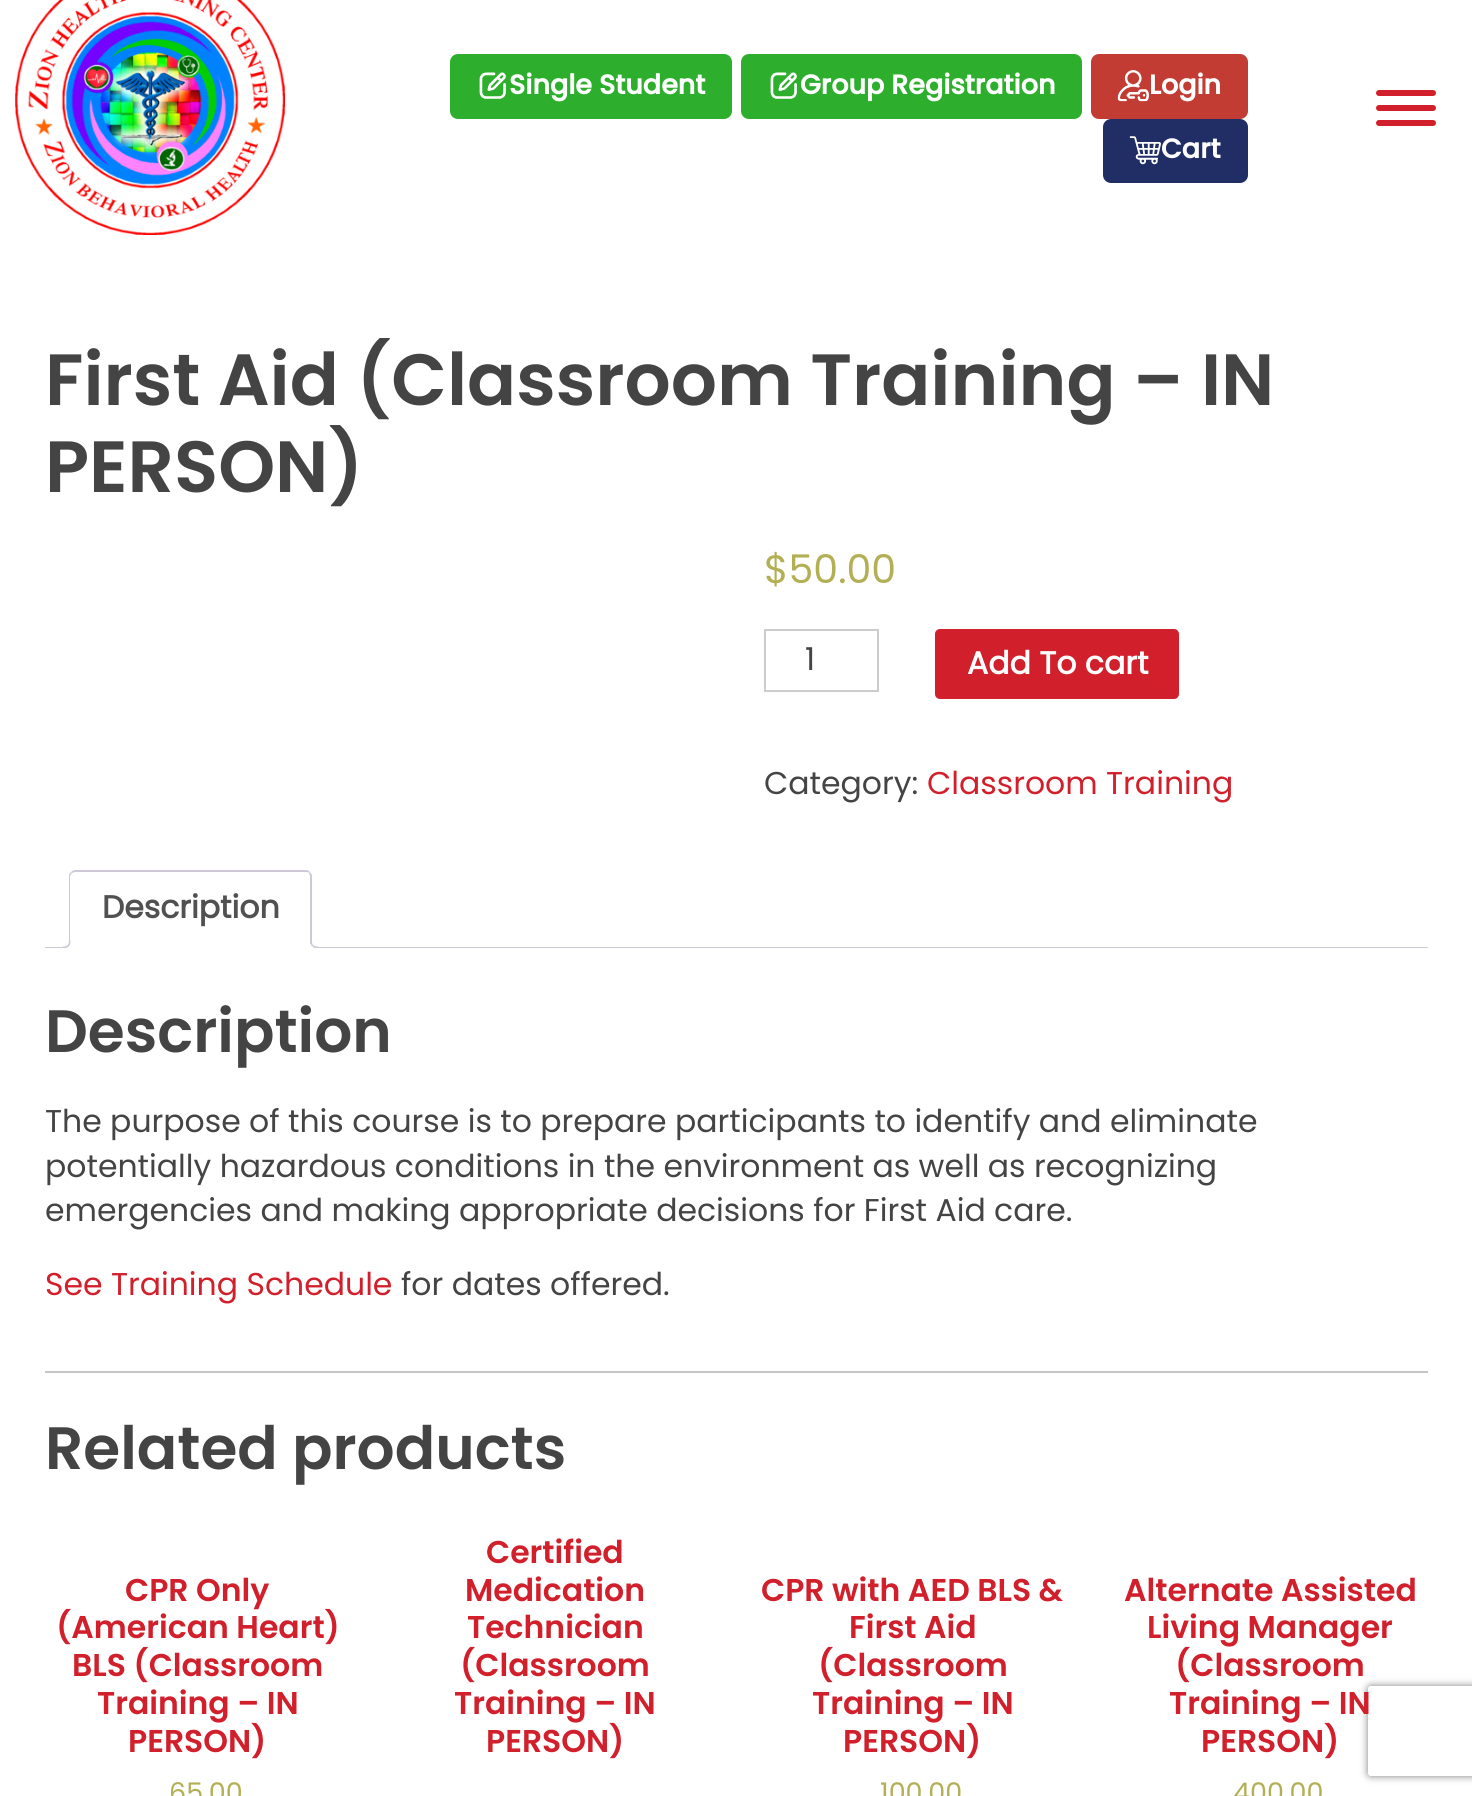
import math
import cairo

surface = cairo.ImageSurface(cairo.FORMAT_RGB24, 1472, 1796)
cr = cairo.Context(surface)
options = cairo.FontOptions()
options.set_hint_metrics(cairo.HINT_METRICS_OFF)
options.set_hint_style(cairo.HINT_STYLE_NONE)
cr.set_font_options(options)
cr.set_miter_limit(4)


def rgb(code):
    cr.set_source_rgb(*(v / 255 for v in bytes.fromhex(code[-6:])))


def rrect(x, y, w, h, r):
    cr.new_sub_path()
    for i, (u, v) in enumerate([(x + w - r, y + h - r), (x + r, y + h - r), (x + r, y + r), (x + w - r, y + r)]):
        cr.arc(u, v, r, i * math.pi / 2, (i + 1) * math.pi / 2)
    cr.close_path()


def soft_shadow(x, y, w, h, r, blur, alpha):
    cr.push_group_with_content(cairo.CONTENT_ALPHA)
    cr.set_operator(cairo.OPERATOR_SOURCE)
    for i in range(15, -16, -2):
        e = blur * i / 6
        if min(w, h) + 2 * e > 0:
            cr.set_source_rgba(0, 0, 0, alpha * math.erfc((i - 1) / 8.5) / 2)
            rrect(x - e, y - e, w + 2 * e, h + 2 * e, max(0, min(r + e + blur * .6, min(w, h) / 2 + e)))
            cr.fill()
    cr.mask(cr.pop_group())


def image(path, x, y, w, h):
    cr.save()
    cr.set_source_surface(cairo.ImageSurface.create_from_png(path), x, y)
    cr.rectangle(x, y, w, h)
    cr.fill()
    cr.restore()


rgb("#ffffff")
cr.paint()
image("img/1.png", 15, 0, 270, 235)
rgb("#2daf2d")
rrect(450, 54, 282, 65, 8)
cr.fill()
image("img/2.png", 479, 72, 27, 27)
rrect(741, 54, 341, 65, 8)
cr.fill()
image("img/3.png", 770, 72, 27, 27)
rgb("#c33c33")
rrect(1091, 54, 157, 65, 8)
cr.fill()
image("img/4.png", 1117, 70, 32, 32)
rgb("#212d65")
rrect(1103, 119, 145, 64, 8)
cr.fill()
image("img/5.png", 1129, 136, 32, 29)
rgb("#d1202c")
rrect(1376, 120, 60, 6, 3)
cr.fill()
rrect(1376, 90, 60, 6, 3)
cr.fill()
rrect(1376, 105, 60, 6, 3)
cr.fill()
cr.rectangle(765, 630, 113, 61)
rgb("#cccccc")
cr.stroke()
rgb("#d1202c")
rrect(935, 629, 244, 70, 5)
cr.fill()
rgb("#cfc8d8")
cr.rectangle(45, 947, 1383, 1)
cr.fill()
rgb("#ffffff")
cr.new_path()
cr.move_to(75, 870)
cr.line_to(306, 870)
cr.curve_to(309.5, 870, 312, 872.5, 312, 876)
cr.line_to(312, 948)
cr.line_to(69, 948)
cr.line_to(69, 876)
cr.curve_to(69, 872.5, 71.5, 870, 75, 870)
cr.close_path()
cr.fill()
rgb("#cfc8d8")
cr.new_path()
cr.move_to(75, 870)
cr.curve_to(74, 870, 72, 871, 71, 872)
cr.line_to(72, 873)
cr.line_to(75, 872)
cr.line_to(306, 872)
cr.curve_to(307, 872, 308, 872, 309, 873)
cr.line_to(310, 872)
cr.curve_to(309, 871, 308, 870, 306, 870)
cr.close_path()
cr.fill()
cr.new_path()
cr.move_to(312, 948)
cr.line_to(312, 875)
cr.line_to(310, 872)
cr.line_to(309, 873)
cr.line_to(310, 876)
cr.line_to(310, 946)
cr.close_path()
cr.fill()
rgb("#ffffff")
cr.new_path()
cr.move_to(312, 948)
cr.line_to(310, 946)
cr.line_to(71, 946)
cr.line_to(69, 948)
cr.close_path()
cr.fill()
rgb("#cfc8d8")
cr.new_path()
cr.move_to(69, 948)
cr.line_to(71, 946)
cr.line_to(70, 946)
cr.line_to(70, 876)
cr.line_to(72, 873)
cr.line_to(71, 872)
cr.curve_to(70, 873, 69, 874, 69, 876)
cr.close_path()
cr.fill()
cr.save()
cr.rectangle(45, 870, 1383, 78)
cr.clip()
rgb("#ffffff")
cr.new_path()
cr.move_to(66, 948)
cr.line_to(66, 951)
cr.curve_to(71, 951, 74, 949.5, 74, 944)
cr.line_to(70, 944)
cr.curve_to(69.5, 946, 68, 947.5, 66, 948)
cr.close_path()
cr.fill()
cr.restore()
cr.set_fill_rule(cairo.FILL_RULE_EVEN_ODD)
cr.new_path()
cr.move_to(63, 940.5)
cr.line_to(70.5, 940.5)
cr.curve_to(70.5, 946, 68.5, 948, 63, 948)
cr.close_path()
cr.move_to(63, 940.5)
cr.line_to(69, 940.5)
cr.curve_to(69, 945, 67.5, 946.5, 63, 946.5)
cr.close_path()
cr.fill()
cr.save()
cr.set_fill_rule(cairo.FILL_RULE_WINDING)
cr.rectangle(45, 870, 1383, 78)
cr.clip()
rgb("#ffffff")
cr.new_path()
cr.move_to(308, 944)
cr.curve_to(308, 948.5, 310.5, 951, 315, 951)
cr.line_to(315, 948)
cr.curve_to(313, 947.5, 311.5, 946, 311, 944)
cr.close_path()
cr.fill()
cr.restore()
cr.new_path()
cr.move_to(310.5, 940.5)
cr.line_to(318, 940.5)
cr.line_to(318, 948)
cr.curve_to(314, 948, 310.5, 946.5, 310.5, 942)
cr.close_path()
cr.move_to(312, 940.5)
cr.line_to(318, 940.5)
cr.line_to(318, 946.5)
cr.curve_to(315, 946.5, 312, 945.5, 312, 942)
cr.close_path()
cr.fill()
rgb("#c5c5c5")
cr.rectangle(45, 1371, 1383, 2)
cr.fill()
cr.save()
cr.new_path()
cr.move_to(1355, 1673)
cr.line_to(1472, 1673)
cr.line_to(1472, 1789)
cr.line_to(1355, 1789)
cr.close_path()
cr.move_to(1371, 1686)
cr.line_to(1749, 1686)
cr.curve_to(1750.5, 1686, 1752, 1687.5, 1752, 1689)
cr.line_to(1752, 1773)
cr.curve_to(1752, 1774.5, 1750.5, 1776, 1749, 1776)
cr.line_to(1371, 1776)
cr.curve_to(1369.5, 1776, 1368, 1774.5, 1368, 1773)
cr.line_to(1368, 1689)
cr.curve_to(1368, 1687.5, 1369.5, 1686, 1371, 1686)
cr.close_path()
cr.clip()
rgb("#808080")
soft_shadow(1368, 1686, 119, 90, 3, 4, 1)
cr.restore()
cr.select_font_face("Poppins", cairo.FONT_SLANT_NORMAL, cairo.FONT_WEIGHT_BOLD)
cr.set_font_size(27)
rgb("#ffffff")
for x, y, s in [
    (509, 94, "Single Student"),
    (800, 94, "Group Registration"),
    (1149, 94, "Login"),
    (1161, 158, "Cart"),
]:
    cr.move_to(x, y)
    cr.show_text(s)
cr.select_font_face("Poppins SemiBold")
cr.set_font_size(72.5)
rgb("#444444")
cr.move_to(45, 405)
cr.show_text("First Aid (Classroom Training – IN")
cr.move_to(45, 492)
cr.show_text("PERSON)")
cr.select_font_face("Poppins")
cr.set_font_size(39.5)
rgb("#b3af54")
cr.move_to(764, 583)
cr.show_text("$50.00")
cr.set_font_size(31.5)
rgb("#444444")
cr.move_to(805, 670)
cr.show_text("1")
cr.select_font_face("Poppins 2", cairo.FONT_SLANT_NORMAL, cairo.FONT_WEIGHT_BOLD)
rgb("#ffffff")
cr.move_to(967, 674)
cr.show_text("Add To cart")
cr.select_font_face("Poppins")
rgb("#444444")
cr.move_to(764, 794)
cr.show_text("Category:")
rgb("#d1202c")
cr.move_to(927, 794)
cr.show_text("Classroom Training")
cr.select_font_face("Poppins 2", cairo.FONT_SLANT_NORMAL, cairo.FONT_WEIGHT_BOLD)
rgb("#515151")
cr.move_to(102, 918)
cr.show_text("Description")
cr.select_font_face("Poppins SemiBold")
cr.set_font_size(59.75)
rgb("#444444")
cr.move_to(45, 1052)
cr.show_text("Description")
cr.select_font_face("Poppins")
cr.set_font_size(31.5)
for x, y, s in [
    (45, 1132, "The purpose of this course is to prepare participants to identify and eliminate"),
    (45, 1177, "potentially hazardous conditions in the environment as well as recognizing"),
    (45, 1221, "emergencies and making appropriate decisions for First Aid care."),
]:
    cr.move_to(x, y)
    cr.show_text(s)
rgb("#d1202c")
cr.move_to(45, 1295)
cr.show_text("See Training Schedule")
rgb("#444444")
cr.move_to(401, 1295)
cr.show_text("for dates offered.")
cr.select_font_face("Poppins SemiBold")
cr.set_font_size(59.75)
cr.move_to(45, 1469)
cr.show_text("Related products")
cr.set_font_size(31.5)
rgb("#d1202c")
for x, y, s in [
    (125, 1601, "CPR Only"),
    (56, 1638, "(American Heart)"),
    (72, 1676, "BLS (Classroom"),
    (97, 1714, "Training – IN"),
    (128, 1752, "PERSON)"),
]:
    cr.move_to(x, y)
    cr.show_text(s)
cr.select_font_face("Poppins")
cr.set_font_size(27)
rgb("#b3af54")
cr.move_to(169, 1802)
cr.show_text("65.00")
cr.select_font_face("Poppins SemiBold")
cr.set_font_size(31.5)
rgb("#d1202c")
for x, y, s in [
    (486, 1563, "Certified"),
    (465, 1601, "Medication"),
    (467, 1638, "Technician"),
    (460, 1676, "(Classroom"),
    (454, 1714, "Training – IN"),
    (486, 1752, "PERSON)"),
    (761, 1601, "CPR with AED BLS &"),
    (849, 1638, "First Aid"),
    (818, 1676, "(Classroom"),
    (812, 1714, "Training – IN"),
    (843, 1752, "PERSON)"),
]:
    cr.move_to(x, y)
    cr.show_text(s)
cr.select_font_face("Poppins")
cr.set_font_size(27)
rgb("#b3af54")
cr.move_to(880, 1802)
cr.show_text("100.00")
cr.select_font_face("Poppins SemiBold")
cr.set_font_size(31.5)
rgb("#d1202c")
for x, y, s in [
    (1124, 1601, "Alternate Assisted"),
    (1147, 1638, "Living Manager"),
    (1175, 1676, "(Classroom"),
    (1169, 1714, "Training – IN"),
    (1201, 1752, "PERSON)"),
]:
    cr.move_to(x, y)
    cr.show_text(s)
cr.select_font_face("Poppins")
cr.set_font_size(27)
rgb("#b3af54")
cr.move_to(1233, 1802)
cr.show_text("400.00")
surface.write_to_png("page.png")
